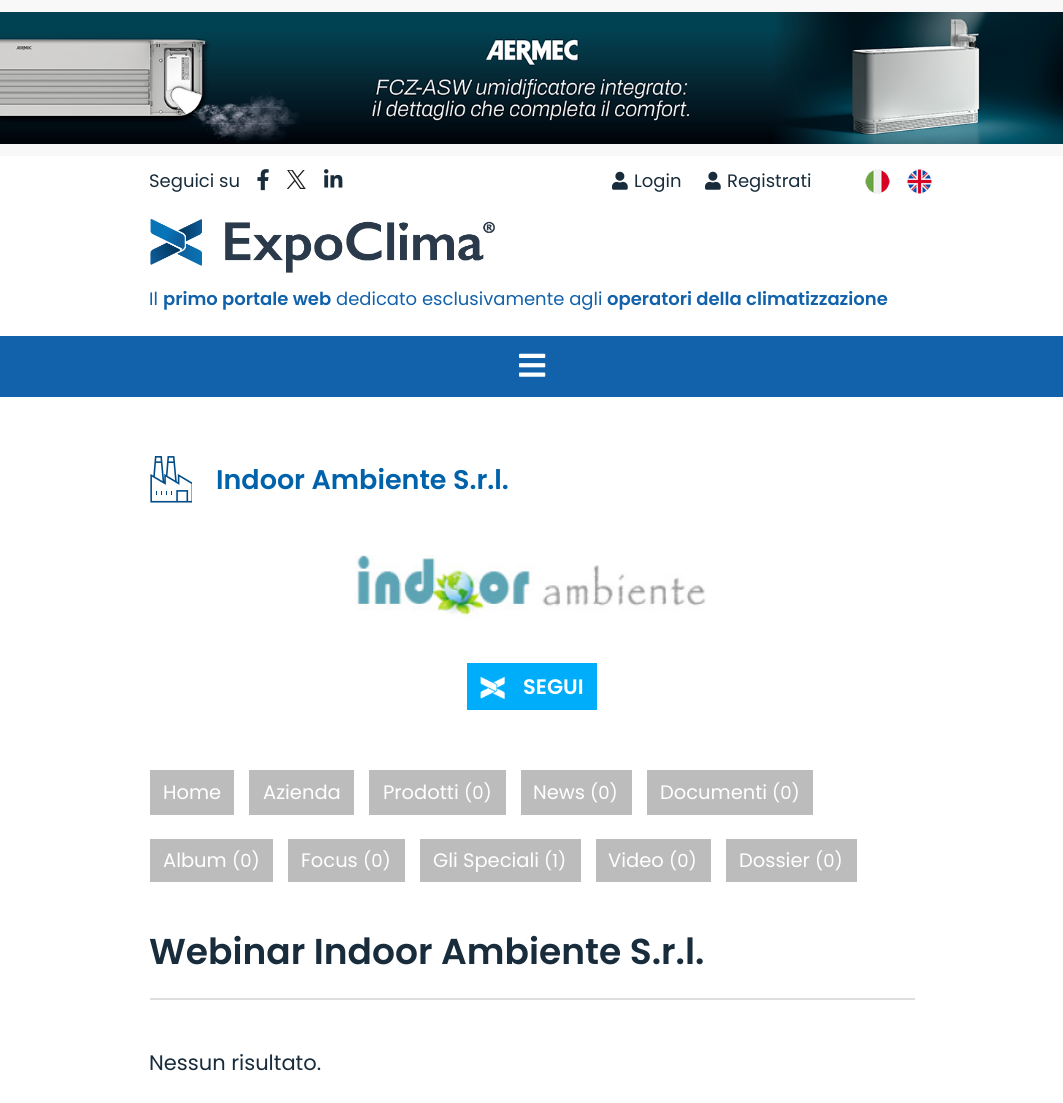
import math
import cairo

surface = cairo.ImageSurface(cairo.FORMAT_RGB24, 1063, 1103)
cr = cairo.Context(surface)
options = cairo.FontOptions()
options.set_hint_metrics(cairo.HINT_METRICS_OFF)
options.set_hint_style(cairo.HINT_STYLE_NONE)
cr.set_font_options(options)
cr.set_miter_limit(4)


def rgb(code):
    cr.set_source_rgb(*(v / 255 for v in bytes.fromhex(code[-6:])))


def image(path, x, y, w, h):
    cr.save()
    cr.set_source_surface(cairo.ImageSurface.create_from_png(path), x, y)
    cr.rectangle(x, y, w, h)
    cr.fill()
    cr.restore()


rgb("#ffffff")
cr.paint()
rgb("#f8f8f8")
cr.rectangle(0, 0, 1063, 156)
cr.fill()
image("img/1.png", 0, 12, 1063, 132)
image("img/2.png", 257, 169, 12, 22)
image("img/3.png", 287, 170, 19, 19)
image("img/4.png", 324, 169, 19, 19)
image("img/5.png", 612, 171, 16, 19)
image("img/5.png", 705, 171, 16, 19)
image("img/6.png", 865, 169, 25, 25)
image("img/7.png", 907, 169, 25, 25)
image("img/8.png", 150, 219, 345, 54)
rgb("#1162ab")
cr.rectangle(0, 336, 1063, 61)
cr.fill()
image("img/9.png", 519, 353, 27, 24)
image("img/10.png", 150, 456, 42, 47)
image("img/11.png", 355, 555, 351, 65)
rgb("#00adfa")
cr.rectangle(467, 663, 130, 47)
cr.fill()
image("img/12.png", 480, 676, 25, 23)
for x, y, w, h, color in [
    (150, 770, 84, 45, "#bcbcbc"),
    (249, 770, 105, 45, "#bcbcbc"),
    (369, 770, 137, 45, "#bcbcbc"),
    (521, 770, 111, 45, "#bcbcbc"),
    (647, 770, 166, 45, "#bcbcbc"),
    (150, 839, 123, 43, "#bcbcbc"),
    (288, 839, 117, 43, "#bcbcbc"),
    (420, 839, 161, 43, "#bcbcbc"),
    (596, 839, 115, 43, "#bcbcbc"),
    (726, 839, 131, 43, "#bcbcbc"),
    (150, 998, 765, 2, "#dedede"),
]:
    rgb(color)
    cr.rectangle(x, y, w, h)
    cr.fill()
cr.select_font_face("Poppins")
cr.set_font_size(18)
rgb("#182c3c")
for x, y, s in [
    (149, 187, "Seguici su"),
    (634, 187, "Login"),
    (727, 187, "Registrati"),
]:
    cr.move_to(x, y)
    cr.show_text(s)
rgb("#1162ab")
cr.move_to(149, 305)
cr.show_text("Il")
cr.select_font_face("Poppins SemiBold")
cr.move_to(163, 305)
cr.show_text("primo portale web")
cr.select_font_face("Poppins")
cr.move_to(336, 305)
cr.show_text("dedicato esclusivamente agli")
cr.select_font_face("Poppins SemiBold")
cr.move_to(607, 305)
cr.show_text("operatori della climatizzazione")
cr.set_font_size(27)
rgb("#0062ab")
cr.move_to(216, 489)
cr.show_text("Indoor Ambiente S.r.l.")
cr.set_font_size(21)
rgb("#ffffff")
cr.move_to(523, 694)
cr.show_text("SEGUI")
cr.select_font_face("Poppins")
cr.set_font_size(19.5)
for x, y, s in [
    (163, 799, "Home"),
    (263, 799, "Azienda"),
    (383, 799, "Prodotti"),
]:
    cr.move_to(x, y)
    cr.show_text(s)
cr.set_font_size(18)
cr.move_to(464, 799)
cr.show_text("(0)")
cr.set_font_size(19.5)
cr.move_to(533, 799)
cr.show_text("News")
cr.set_font_size(18)
cr.move_to(590, 799)
cr.show_text("(0)")
cr.set_font_size(19.5)
cr.move_to(660, 799)
cr.show_text("Documenti")
cr.set_font_size(18)
cr.move_to(772, 799)
cr.show_text("(0)")
cr.set_font_size(19.5)
cr.move_to(163, 867)
cr.show_text("Album")
cr.set_font_size(18)
cr.move_to(232, 867)
cr.show_text("(0)")
cr.set_font_size(19.5)
cr.move_to(301, 867)
cr.show_text("Focus")
cr.set_font_size(18)
cr.move_to(363, 867)
cr.show_text("(0)")
cr.set_font_size(19.5)
cr.move_to(433, 867)
cr.show_text("Gli Speciali")
cr.set_font_size(18)
cr.move_to(544, 867)
cr.show_text("(1)")
cr.set_font_size(19.5)
cr.move_to(608, 867)
cr.show_text("Video")
cr.set_font_size(18)
cr.move_to(669, 867)
cr.show_text("(0)")
cr.set_font_size(19.5)
cr.move_to(739, 867)
cr.show_text("Dossier")
cr.set_font_size(18)
cr.move_to(815, 867)
cr.show_text("(0)")
cr.select_font_face("Poppins SemiBold")
cr.set_font_size(36)
rgb("#182c3c")
cr.move_to(149, 964)
cr.show_text("Webinar Indoor Ambiente S.r.l.")
cr.select_font_face("Poppins")
cr.set_font_size(21)
cr.move_to(149, 1070)
cr.show_text("Nessun risultato.")
surface.write_to_png("page.png")
